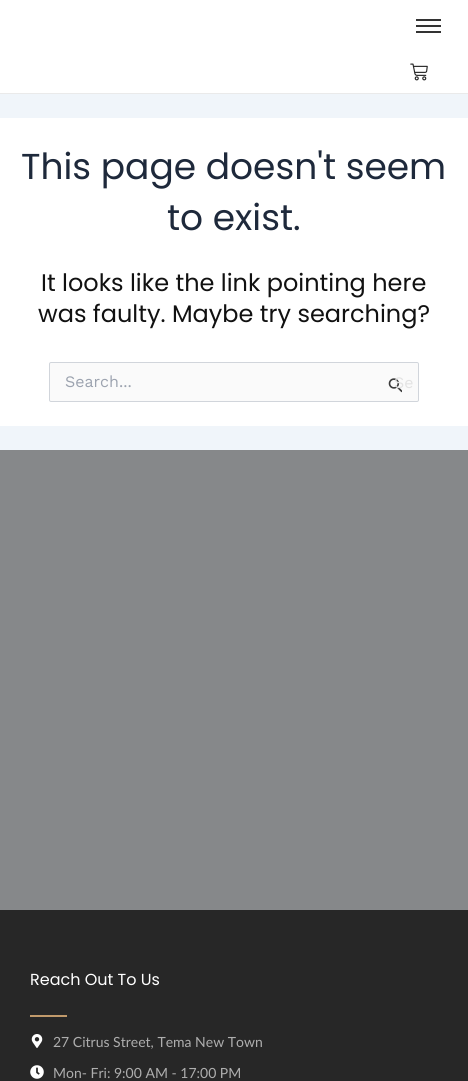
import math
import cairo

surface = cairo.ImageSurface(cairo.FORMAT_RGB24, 468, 1081)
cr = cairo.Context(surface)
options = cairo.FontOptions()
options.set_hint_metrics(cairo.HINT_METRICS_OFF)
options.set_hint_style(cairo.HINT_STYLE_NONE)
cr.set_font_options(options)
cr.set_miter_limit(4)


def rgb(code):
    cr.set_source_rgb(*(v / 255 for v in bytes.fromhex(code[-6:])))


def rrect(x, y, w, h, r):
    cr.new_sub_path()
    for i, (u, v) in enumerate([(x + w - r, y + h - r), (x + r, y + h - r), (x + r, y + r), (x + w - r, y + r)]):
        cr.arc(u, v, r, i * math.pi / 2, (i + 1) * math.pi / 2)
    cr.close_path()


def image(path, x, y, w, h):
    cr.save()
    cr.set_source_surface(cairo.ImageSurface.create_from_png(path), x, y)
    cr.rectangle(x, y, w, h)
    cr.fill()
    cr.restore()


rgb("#f0f5fa")
cr.paint()
for x, y, w, h, color in [
    (0, 0, 468, 93, "#ffffff"),
    (0, 93, 468, 1, "#eaeaea"),
    (416, 19, 25, 2, "#333333"),
    (416, 25, 25, 2, "#333333"),
    (416, 31, 25, 2, "#333333"),
]:
    rgb(color)
    cr.rectangle(x, y, w, h)
    cr.fill()
image("img/1.png", 410, 63, 18, 18)
rgb("#ffffff")
cr.rectangle(0, 118, 468, 308)
cr.fill()
rgb("#fafafa")
rrect(49.5, 362.5, 369, 39, 1.5)
cr.fill_preserve()
rgb("#d1d5db")
cr.set_line_width(1)
cr.stroke()
image("img/2.png", 388, 378, 14, 15)
for x, y, w, h, color in [
    (0, 450, 468, 460, "#86888a"),
    (0, 910, 468, 171, "#272727"),
    (30, 1015, 37, 2, "#c19a6b"),
]:
    rgb(color)
    cr.rectangle(x, y, w, h)
    cr.fill()
image("img/3.png", 31, 1034, 12, 14)
image("img/4.png", 30, 1065, 14, 14)
cr.select_font_face("Poppins")
cr.set_font_size(36)
rgb("#1e293b")
cr.move_to(21, 179)
cr.show_text("This page doesn't seem")
cr.move_to(167, 230)
cr.show_text("to exist.")
cr.set_font_size(24)
rgb("#111111")
cr.move_to(41, 291)
cr.show_text("It looks like the link pointing here")
cr.move_to(38, 322)
cr.show_text("was faulty. Maybe try searching?")
cr.select_font_face("Work Sans")
cr.set_font_size(16)
rgb("#9ca3af")
cr.move_to(65, 387)
cr.show_text("Search...")
rgb("#e3e3e3")
cr.move_to(394, 388)
cr.show_text("Se")
cr.select_font_face("Poppins")
rgb("#ffffff")
cr.move_to(30, 985)
cr.show_text("Reach Out To Us")
cr.select_font_face("Lato")
cr.set_font_size(14)
rgb("#aeaeae")
cr.move_to(53, 1047)
cr.show_text("27 Citrus Street, Tema New Town")
cr.move_to(53, 1078)
cr.show_text("Mon- Fri: 9:00 AM - 17:00 PM")
surface.write_to_png("page.png")
